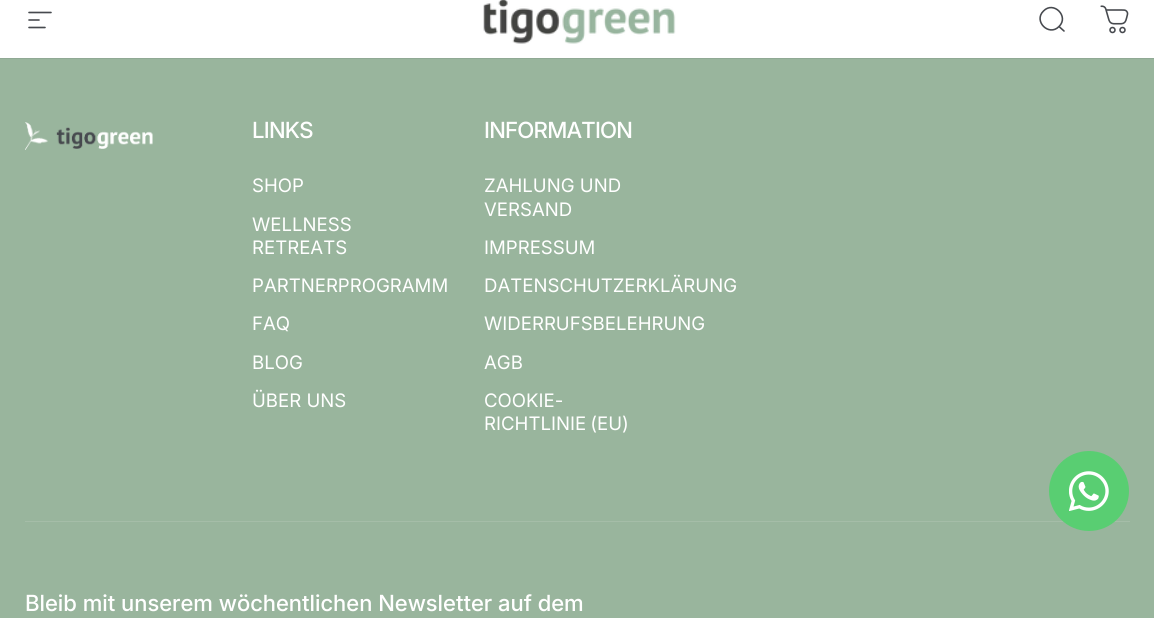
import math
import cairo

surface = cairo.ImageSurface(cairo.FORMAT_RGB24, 1154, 618)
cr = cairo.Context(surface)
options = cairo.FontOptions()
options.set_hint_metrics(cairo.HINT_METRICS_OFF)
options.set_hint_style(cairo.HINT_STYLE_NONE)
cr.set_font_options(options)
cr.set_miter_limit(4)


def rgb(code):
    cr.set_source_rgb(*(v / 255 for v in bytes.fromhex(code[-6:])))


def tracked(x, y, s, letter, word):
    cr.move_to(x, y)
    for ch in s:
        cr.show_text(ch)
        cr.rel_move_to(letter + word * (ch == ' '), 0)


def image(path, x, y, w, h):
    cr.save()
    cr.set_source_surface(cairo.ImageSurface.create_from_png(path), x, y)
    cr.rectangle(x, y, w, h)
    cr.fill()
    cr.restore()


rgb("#ffffff")
cr.paint()
cr.new_path()
cr.move_to(29, 12.5)
cr.line_to(51, 12.5)
cr.move_to(29, 20)
cr.line_to(39, 20)
cr.move_to(29, 27.5)
cr.line_to(45, 27.5)
rgb("#474a4f")
cr.set_line_width(1.6)
cr.set_line_cap(cairo.LINE_CAP_ROUND)
cr.stroke()
image("img/1.png", 483, 0, 193, 44)
cr.new_path()
cr.move_to(1064, 31)
cr.line_to(1059, 26.5)
cr.move_to(1059, 26.5)
cr.curve_to(1069.5, 16.5, 1053.5, 0.5, 1043.5, 11)
cr.curve_to(1033, 21, 1049, 37, 1059, 26.5)
cr.close_path()
cr.stroke()
image("img/2.png", 1100, 5, 29, 29)
rgb("#90a994")
cr.rectangle(0, 58, 1154, 1)
cr.fill()
rgb("#99b59d")
cr.rectangle(0, 59, 1154, 559)
cr.fill()
image("img/3.png", 25, 122, 128, 28)
rgb("#a5bda8")
cr.rectangle(25, 521, 1105, 1)
cr.fill()
rgb("#59ce72")
cr.arc(1089, 491, 40, 0, 2 * math.pi)
cr.fill()
image("img/4.png", 1069, 471, 40, 40)
cr.select_font_face("Inter Medium")
cr.set_font_size(22.25)
rgb("#ffffff")
tracked(252, 138, "LINKS", -0.75, 0)
cr.select_font_face("Inter")
cr.set_font_size(18.6)
for x, y, s in [
    (252, 192, "SHOP"),
    (252, 231, "WELLNESS"),
    (252, 254, "RETREATS"),
    (252, 292, "PARTNERPROGRAMM"),
    (252, 330, "FAQ"),
    (252, 369, "BLOG"),
    (252, 407, "ÜBER UNS"),
]:
    cr.move_to(x, y)
    cr.show_text(s)
cr.select_font_face("Inter Medium")
cr.set_font_size(22.25)
tracked(484, 138, "INFORMATION", -0.75, 0)
cr.select_font_face("Inter")
cr.set_font_size(18.6)
for x, y, s in [
    (484, 192, "ZAHLUNG UND"),
    (484, 216, "VERSAND"),
    (484, 254, "IMPRESSUM"),
    (484, 292, "DATENSCHUTZERKLÄRUNG"),
    (484, 330, "WIDERRUFSBELEHRUNG"),
    (484, 369, "AGB"),
    (484, 407, "COOKIE-"),
]:
    cr.move_to(x, y)
    cr.show_text(s)
tracked(484, 430, "RICHTLINIE (EU)", 0, -1)
cr.select_font_face("Inter Medium")
cr.set_font_size(22.25)
cr.move_to(25, 611)
cr.show_text("Bleib mit unserem wöchentlichen Newsletter auf dem")
surface.write_to_png("page.png")
